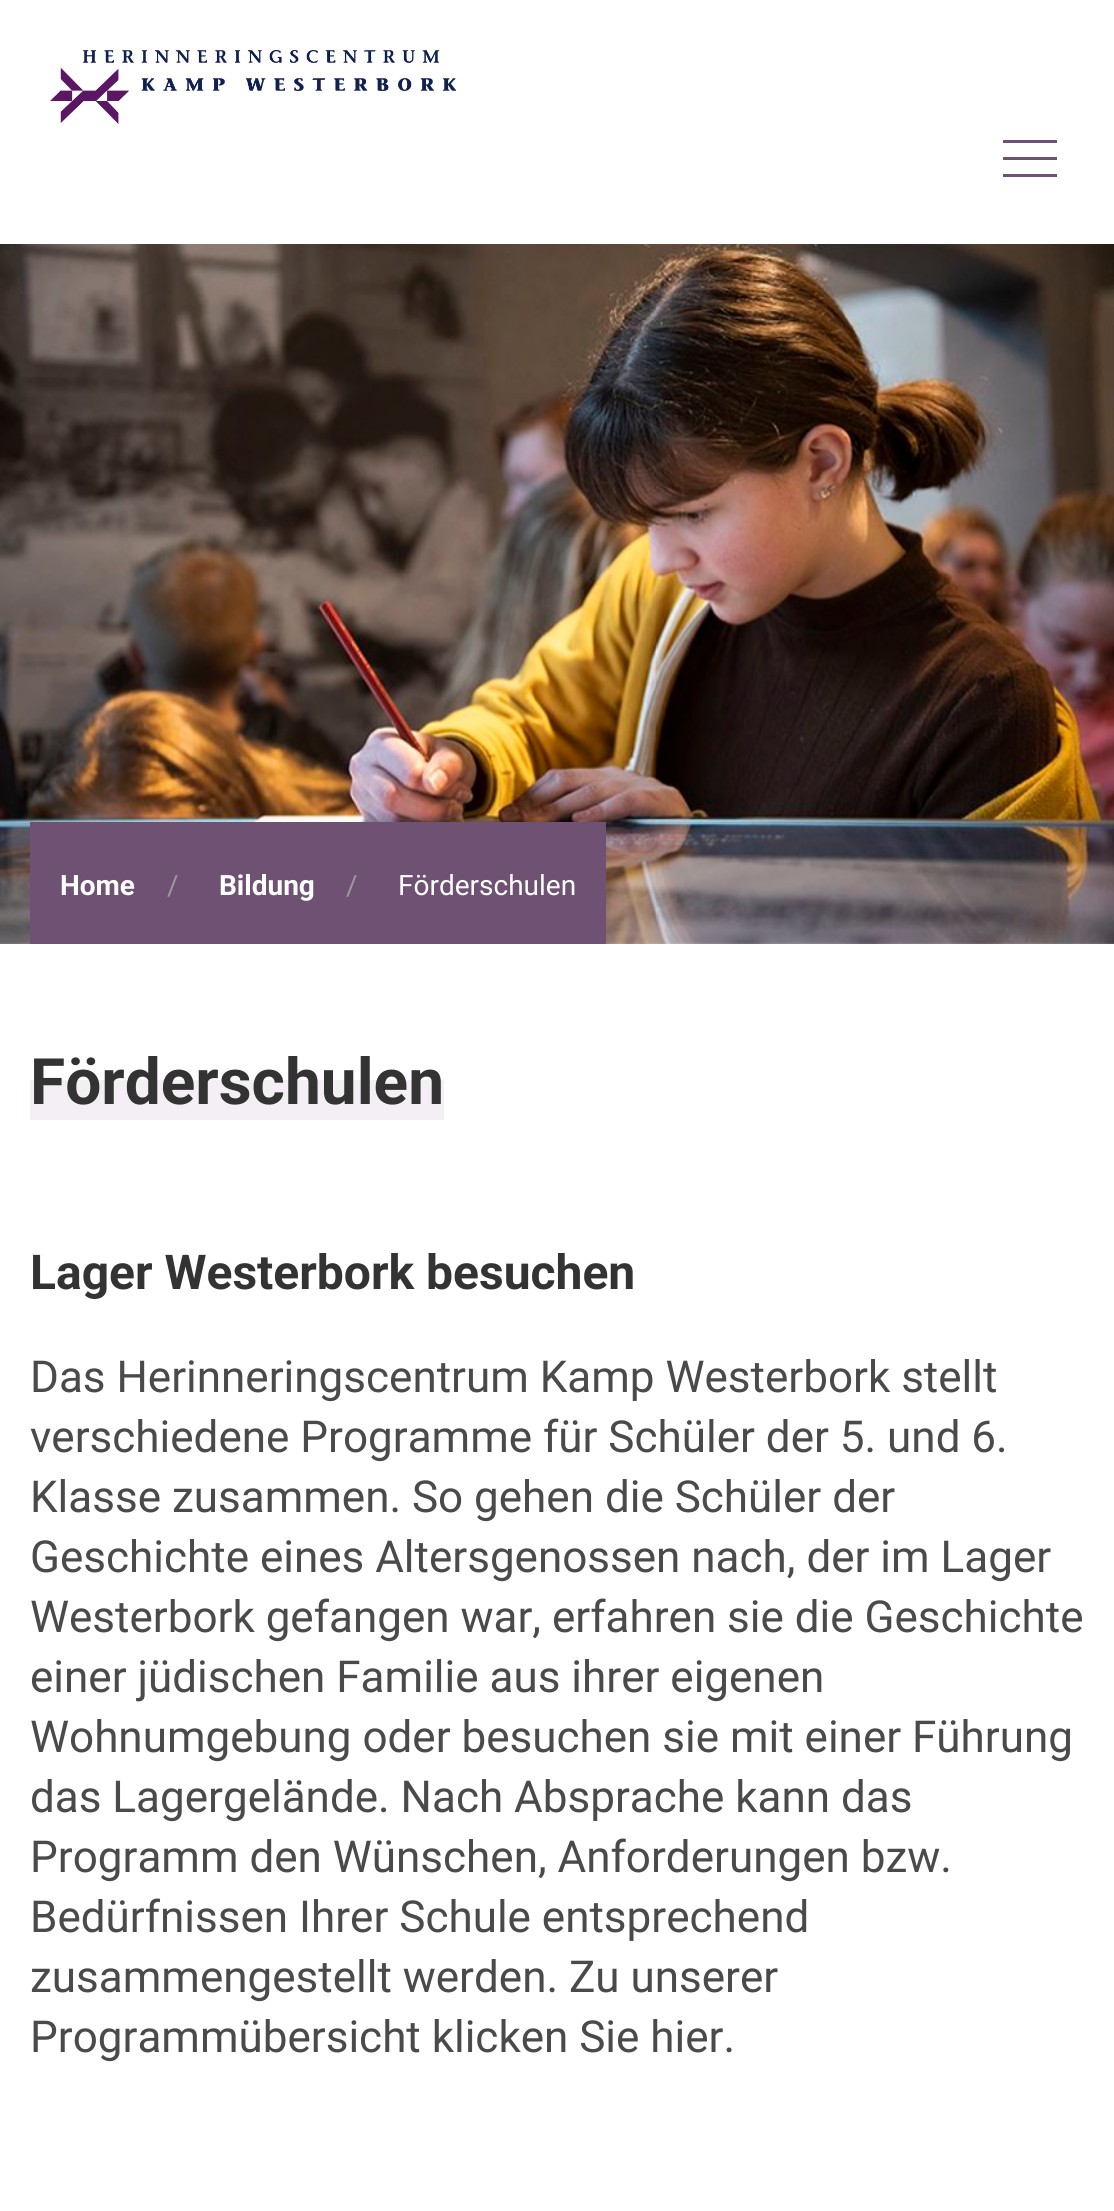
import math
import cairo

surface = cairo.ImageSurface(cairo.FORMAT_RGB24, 1114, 2211)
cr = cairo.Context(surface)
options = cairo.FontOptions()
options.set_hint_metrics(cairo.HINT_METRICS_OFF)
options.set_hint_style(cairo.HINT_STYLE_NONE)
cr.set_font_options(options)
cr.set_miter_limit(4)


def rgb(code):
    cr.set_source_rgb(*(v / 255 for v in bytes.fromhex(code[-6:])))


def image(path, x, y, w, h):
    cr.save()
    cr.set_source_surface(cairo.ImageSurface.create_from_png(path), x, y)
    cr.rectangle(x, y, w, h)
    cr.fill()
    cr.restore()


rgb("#ffffff")
cr.paint()
image("img/1.png", 50, 50, 406, 74)
for x, y, w, h, color in [
    (1003, 140, 54, 3, "#6f5173"),
    (1003, 157, 54, 3, "#6f5173"),
    (1003, 174, 54, 3, "#6f5173"),
]:
    rgb(color)
    cr.rectangle(x, y, w, h)
    cr.fill()
image("img/2.png", 0, 244, 1114, 700)
cr.rectangle(30, 822, 576, 122)
cr.fill()
rgb("#f4eff4")
cr.rectangle(30, 1080, 414, 40)
cr.fill()
cr.select_font_face("Roboto", cairo.FONT_SLANT_NORMAL, cairo.FONT_WEIGHT_BOLD)
cr.set_font_size(28)
rgb("#ffffff")
cr.move_to(60, 895)
cr.show_text("Home")
cr.select_font_face("Roboto")
rgb("#999999")
cr.move_to(167, 895)
cr.show_text("/")
cr.select_font_face("Roboto", cairo.FONT_SLANT_NORMAL, cairo.FONT_WEIGHT_BOLD)
rgb("#ffffff")
cr.move_to(219, 895)
cr.show_text("Bildung")
cr.select_font_face("Roboto")
rgb("#999999")
cr.move_to(346, 895)
cr.show_text("/")
rgb("#ffffff")
cr.move_to(398, 895)
cr.show_text("Förderschulen")
cr.select_font_face("Roboto", cairo.FONT_SLANT_NORMAL, cairo.FONT_WEIGHT_BOLD)
cr.set_font_size(64)
rgb("#333333")
cr.move_to(30, 1104)
cr.show_text("Förderschulen")
cr.set_font_size(48)
cr.move_to(30, 1289)
cr.show_text("Lager Westerbork besuchen")
cr.select_font_face("Roboto")
cr.set_font_size(44)
rgb("#4a4a4a")
for x, y, s in [
    (30, 1392, "Das Herinneringscentrum Kamp Westerbork stellt"),
    (30, 1452, "verschiedene Programme für Schüler der 5. und 6."),
    (30, 1512, "Klasse zusammen. So gehen die Schüler der"),
    (30, 1572, "Geschichte eines Altersgenossen nach, der im Lager"),
    (30, 1632, "Westerbork gefangen war, erfahren sie die Geschichte"),
    (30, 1692, "einer jüdischen Familie aus ihrer eigenen"),
    (30, 1752, "Wohnumgebung oder besuchen sie mit einer Führung"),
    (30, 1812, "das Lagergelände. Nach Absprache kann das"),
    (30, 1872, "Programm den Wünschen, Anforderungen bzw."),
    (30, 1932, "Bedürfnissen Ihrer Schule entsprechend"),
    (30, 1992, "zusammengestellt werden. Zu unserer"),
    (30, 2052, "Programmübersicht klicken Sie hier."),
]:
    cr.move_to(x, y)
    cr.show_text(s)
surface.write_to_png("page.png")
